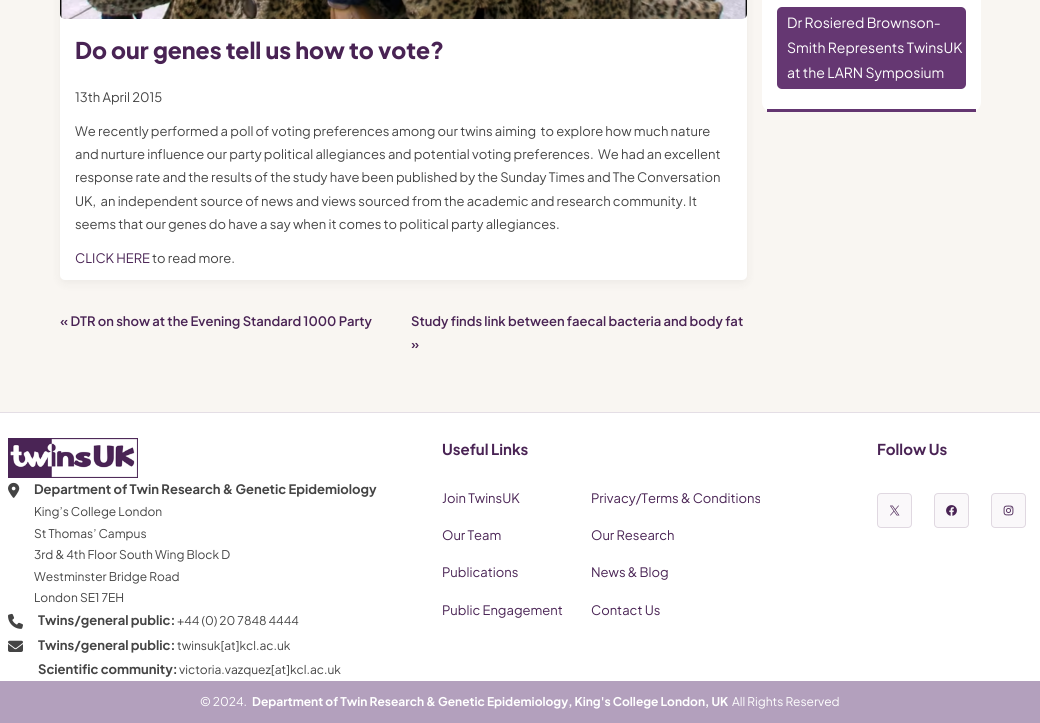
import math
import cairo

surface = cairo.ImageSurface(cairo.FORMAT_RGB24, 1040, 723)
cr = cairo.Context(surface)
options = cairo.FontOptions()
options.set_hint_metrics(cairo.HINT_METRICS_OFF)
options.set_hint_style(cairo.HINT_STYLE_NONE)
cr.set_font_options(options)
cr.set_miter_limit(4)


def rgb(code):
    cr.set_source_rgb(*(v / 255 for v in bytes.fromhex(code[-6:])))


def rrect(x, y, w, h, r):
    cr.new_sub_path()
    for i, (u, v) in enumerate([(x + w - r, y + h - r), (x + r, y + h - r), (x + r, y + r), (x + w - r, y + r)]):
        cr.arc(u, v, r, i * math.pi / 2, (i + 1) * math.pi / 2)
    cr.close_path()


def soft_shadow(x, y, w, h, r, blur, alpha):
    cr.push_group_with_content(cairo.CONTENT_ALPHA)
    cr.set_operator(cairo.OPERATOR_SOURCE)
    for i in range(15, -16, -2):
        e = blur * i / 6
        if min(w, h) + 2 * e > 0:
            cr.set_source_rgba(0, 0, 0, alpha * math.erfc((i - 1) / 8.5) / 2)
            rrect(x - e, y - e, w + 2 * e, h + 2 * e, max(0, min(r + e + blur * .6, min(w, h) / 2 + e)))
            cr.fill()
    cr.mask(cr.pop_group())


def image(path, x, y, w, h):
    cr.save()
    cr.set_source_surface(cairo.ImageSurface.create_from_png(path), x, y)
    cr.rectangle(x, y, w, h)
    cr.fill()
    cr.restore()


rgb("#f9f6f2")
cr.paint()
rgb("#ffffff")
rrect(762, -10, 219, 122, 10)
cr.fill()
rgb("#000000")
soft_shadow(60, -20, 687, 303, 5, 5, 0.05)
rgb("#ffffff")
rrect(60, -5, 687, 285, 5)
cr.fill()
image("img/1.png", 60, 0, 687, 19)
cr.set_source_rgba(0.255, 0.031, 0.318, 0.81)
cr.rectangle(767, 109, 209, 3)
cr.fill()
rgb("#653772")
rrect(777, 7, 189, 82, 5)
cr.fill()
rgb("#ffffff")
cr.rectangle(0, 413, 1040, 268)
cr.fill()
rgb("#e4dee5")
cr.rectangle(0, 412, 1040, 1)
cr.fill()
rgb("#faf8fa")
rrect(877.5, 493.5, 34, 34, 3.5)
cr.fill_preserve()
rgb("#e0d8e1")
cr.set_line_width(1)
cr.stroke()
image("img/2.png", 890, 505, 10, 11)
rgb("#faf8fa")
rrect(934.5, 493.5, 34, 34, 3.5)
cr.fill_preserve()
rgb("#e0d8e1")
cr.stroke()
image("img/3.png", 946, 505, 11, 11)
rgb("#faf8fa")
rrect(991.5, 493.5, 34, 34, 3.5)
cr.fill_preserve()
rgb("#e0d8e1")
cr.stroke()
image("img/4.png", 1003, 505, 11, 11)
image("img/5.png", 8, 438, 130, 40)
image("img/6.png", 8, 482, 12, 16)
image("img/7.png", 8, 613, 15, 16)
image("img/8.png", 8, 640, 15, 12)
rgb("#b3a0bd")
cr.rectangle(0, 681, 1040, 42)
cr.fill()
cr.select_font_face("Plus Jakarta Sans ExtraBold")
cr.set_font_size(23)
rgb("#492354")
cr.move_to(75, 59)
cr.show_text("Do our genes tell us how to vote?")
cr.select_font_face("Plus Jakarta Sans")
cr.set_font_size(13)
rgb("#444444")
for x, y, s in [
    (75, 102, "13th April 2015"),
    (75, 136, "We recently performed a poll of voting preferences among our twins aiming  to explore how much nature"),
    (75, 159, "and nurture influence our party political allegiances and potential voting preferences.  We had an excellent"),
    (75, 182, "response rate and the results of the study have been published by the Sunday Times and The Conversation"),
    (75, 206, "UK,  an independent source of news and views sourced from the academic and research community. It"),
    (75, 229, "seems that our genes do have a say when it comes to political party allegiances."),
]:
    cr.move_to(x, y)
    cr.show_text(s)
rgb("#492354")
cr.move_to(75, 263)
cr.show_text("CLICK HERE")
rgb("#444444")
cr.move_to(152, 263)
cr.show_text("to read more.")
cr.select_font_face("Plus Jakarta Sans SemiBold")
rgb("#492354")
for x, y, s in [
    (60, 326, "« DTR on show at the Evening Standard 1000 Party"),
    (411, 326, "Study finds link between faecal bacteria and body fat"),
    (411, 349, "»"),
]:
    cr.move_to(x, y)
    cr.show_text(s)
cr.select_font_face("Plus Jakarta Sans")
cr.set_font_size(14)
rgb("#ffffff")
for x, y, s in [
    (787, 28, "Dr Rosiered Brownson-"),
    (787, 53, "Smith Represents TwinsUK"),
    (787, 78, "at the LARN Symposium"),
]:
    cr.move_to(x, y)
    cr.show_text(s)
cr.select_font_face("Plus Jakarta Sans", cairo.FONT_SLANT_NORMAL, cairo.FONT_WEIGHT_BOLD)
cr.set_font_size(15)
rgb("#492354")
cr.move_to(442, 455)
cr.show_text("Useful Links")
cr.select_font_face("Plus Jakarta Sans")
cr.set_font_size(13)
for x, y, s in [
    (442, 503, "Join TwinsUK"),
    (442, 540, "Our Team"),
    (442, 577, "Publications"),
    (442, 615, "Public Engagement"),
    (591, 503, "Privacy/Terms & Conditions"),
    (591, 540, "Our Research"),
    (591, 577, "News & Blog"),
    (591, 615, "Contact Us"),
]:
    cr.move_to(x, y)
    cr.show_text(s)
cr.select_font_face("Plus Jakarta Sans", cairo.FONT_SLANT_NORMAL, cairo.FONT_WEIGHT_BOLD)
cr.set_font_size(15)
cr.move_to(877, 455)
cr.show_text("Follow Us")
cr.set_font_size(13)
rgb("#444444")
cr.move_to(34, 494)
cr.show_text("Department of Twin Research & Genetic Epidemiology")
cr.select_font_face("Plus Jakarta Sans")
cr.set_font_size(12)
for x, y, s in [
    (34, 516, "King’s College London"),
    (34, 538, "St Thomas’ Campus"),
    (34, 559, "3rd & 4th Floor South Wing Block D"),
    (34, 581, "Westminster Bridge Road"),
    (34, 602, "London SE1 7EH"),
]:
    cr.move_to(x, y)
    cr.show_text(s)
cr.select_font_face("Plus Jakarta Sans", cairo.FONT_SLANT_NORMAL, cairo.FONT_WEIGHT_BOLD)
cr.set_font_size(13)
cr.move_to(38, 625)
cr.show_text("Twins/general public:")
cr.select_font_face("Plus Jakarta Sans")
cr.set_font_size(12)
cr.move_to(177, 625)
cr.show_text("+44 (0) 20 7848 4444")
cr.select_font_face("Plus Jakarta Sans", cairo.FONT_SLANT_NORMAL, cairo.FONT_WEIGHT_BOLD)
cr.set_font_size(13)
cr.move_to(38, 650)
cr.show_text("Twins/general public:")
cr.select_font_face("Plus Jakarta Sans")
cr.set_font_size(12)
cr.move_to(177, 650)
cr.show_text("twinsuk[at]kcl.ac.uk")
cr.select_font_face("Plus Jakarta Sans", cairo.FONT_SLANT_NORMAL, cairo.FONT_WEIGHT_BOLD)
cr.set_font_size(13)
cr.move_to(38, 674)
cr.show_text("Scientific community:")
cr.select_font_face("Plus Jakarta Sans")
cr.set_font_size(12)
cr.move_to(179, 674)
cr.show_text("victoria.vazquez[at]kcl.ac.uk")
rgb("#ffffff")
cr.move_to(200, 706)
cr.show_text("© 2024.")
cr.select_font_face("Plus Jakarta Sans", cairo.FONT_SLANT_NORMAL, cairo.FONT_WEIGHT_BOLD)
cr.move_to(252, 706)
cr.show_text("Department of Twin Research & Genetic Epidemiology, King's College London, UK")
cr.select_font_face("Plus Jakarta Sans")
cr.move_to(732, 706)
cr.show_text("All Rights Reserved")
surface.write_to_png("page.png")
